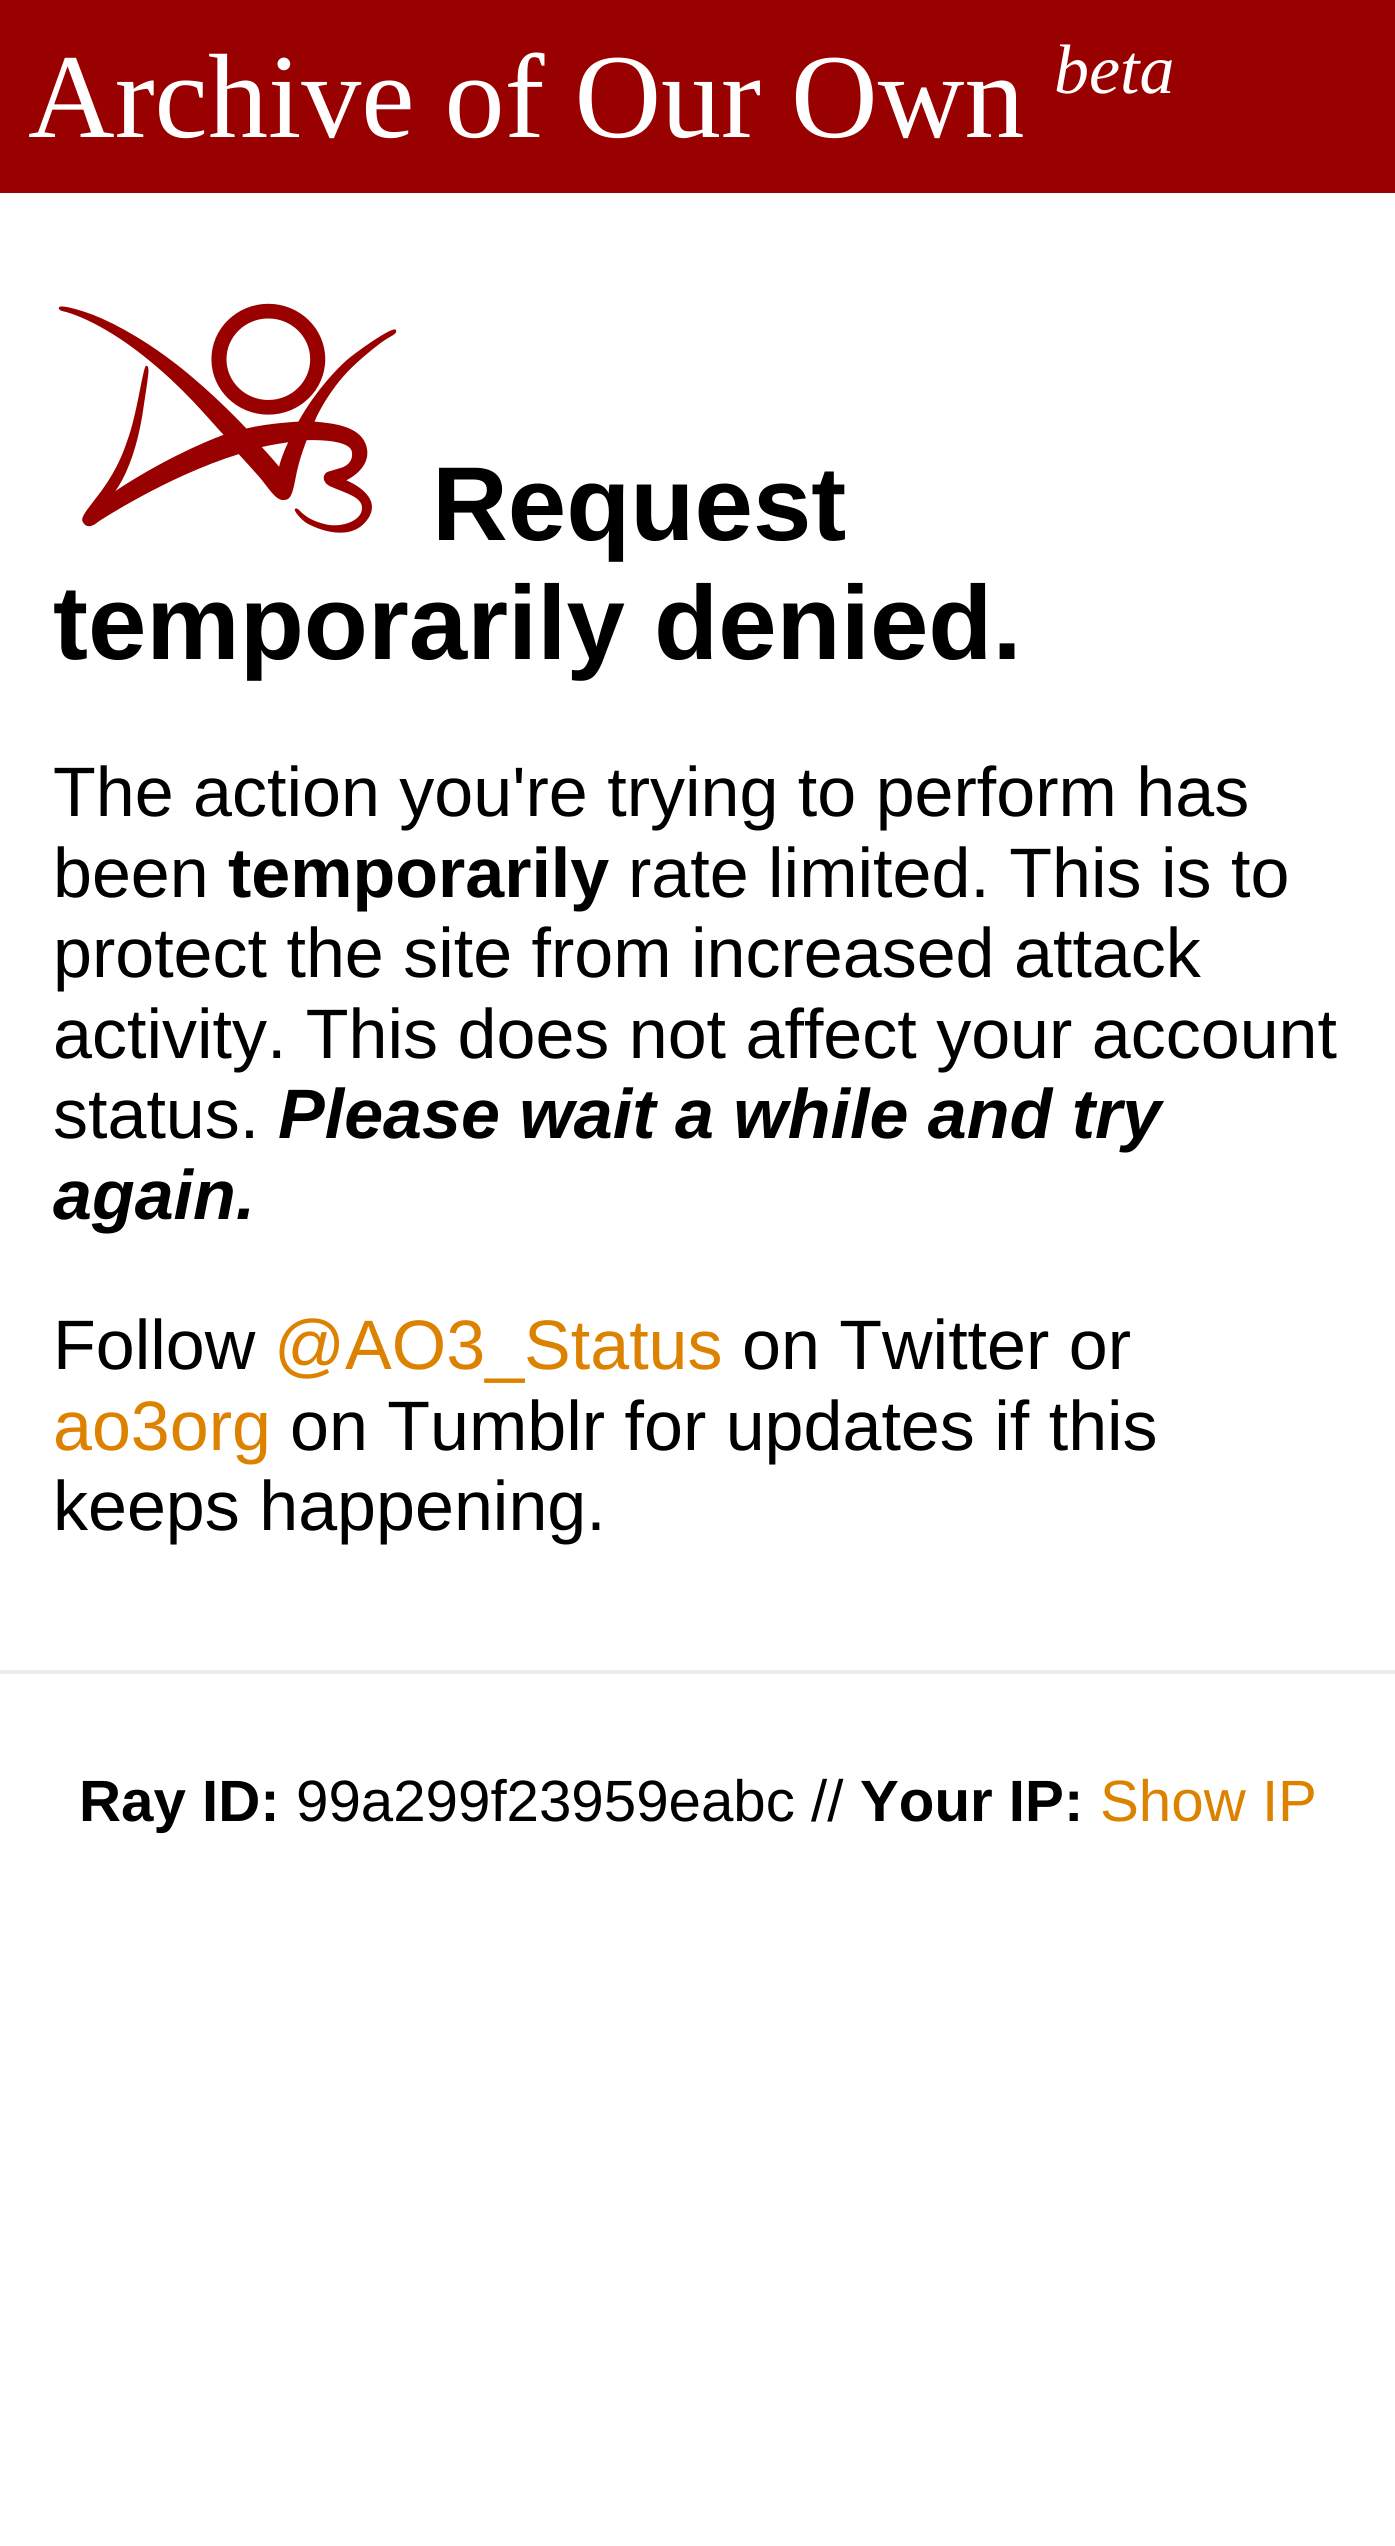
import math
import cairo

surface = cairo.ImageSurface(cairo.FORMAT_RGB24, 1395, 2546)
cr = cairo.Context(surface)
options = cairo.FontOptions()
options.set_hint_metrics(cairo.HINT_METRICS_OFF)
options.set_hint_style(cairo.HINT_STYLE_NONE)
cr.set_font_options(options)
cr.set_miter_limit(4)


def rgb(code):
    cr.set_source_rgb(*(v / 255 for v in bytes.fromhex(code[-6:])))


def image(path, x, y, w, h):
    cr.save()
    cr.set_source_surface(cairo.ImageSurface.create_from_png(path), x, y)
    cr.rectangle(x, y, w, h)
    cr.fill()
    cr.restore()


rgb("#ffffff")
cr.paint()
rgb("#990000")
cr.rectangle(0, 0, 1395, 193)
cr.fill()
image("img/1.png", 58, 303, 339, 230)
rgb("#ebebeb")
cr.rectangle(0, 1670, 1395, 4)
cr.fill()
cr.select_font_face("Liberation Serif")
cr.set_font_size(120)
rgb("#ffffff")
cr.move_to(28, 137)
cr.show_text("Archive of Our Own")
cr.select_font_face("Liberation Serif", cairo.FONT_SLANT_ITALIC)
cr.set_font_size(70)
cr.move_to(1054, 93)
cr.show_text("beta")
cr.select_font_face("Liberation Sans", cairo.FONT_SLANT_NORMAL, cairo.FONT_WEIGHT_BOLD)
cr.set_font_size(105)
rgb("#000000")
cr.move_to(432, 540)
cr.show_text("Request")
cr.move_to(53, 659)
cr.show_text("temporarily denied.")
cr.select_font_face("Liberation Sans")
cr.set_font_size(70)
cr.move_to(53, 816)
cr.show_text("The action you're trying to perform has")
cr.move_to(53, 897)
cr.show_text("been")
cr.select_font_face("Liberation Sans", cairo.FONT_SLANT_NORMAL, cairo.FONT_WEIGHT_BOLD)
cr.move_to(228, 897)
cr.show_text("temporarily")
cr.select_font_face("Liberation Sans")
for x, y, s in [
    (628, 897, "rate limited. This is to"),
    (53, 977, "protect the site from increased attack"),
    (53, 1058, "activity. This does not affect your account"),
    (53, 1138, "status."),
]:
    cr.move_to(x, y)
    cr.show_text(s)
cr.select_font_face("Liberation Sans", cairo.FONT_SLANT_ITALIC, cairo.FONT_WEIGHT_BOLD)
cr.move_to(278, 1138)
cr.show_text("Please wait a while and try")
cr.move_to(53, 1219)
cr.show_text("again.")
cr.select_font_face("Liberation Sans")
cr.move_to(53, 1369)
cr.show_text("Follow")
rgb("#dc8100")
cr.move_to(274, 1369)
cr.show_text("@AO3_Status")
rgb("#000000")
cr.move_to(742, 1369)
cr.show_text("on Twitter or")
rgb("#dc8100")
cr.move_to(53, 1450)
cr.show_text("ao3org")
rgb("#000000")
cr.move_to(290, 1450)
cr.show_text("on Tumblr for updates if this")
cr.move_to(53, 1530)
cr.show_text("keeps happening.")
cr.select_font_face("Liberation Sans", cairo.FONT_SLANT_NORMAL, cairo.FONT_WEIGHT_BOLD)
cr.set_font_size(58.25)
cr.move_to(79, 1821)
cr.show_text("Ray ID:")
cr.select_font_face("Liberation Sans")
cr.move_to(296, 1821)
cr.show_text("99a299f23959eabc //")
cr.select_font_face("Liberation Sans", cairo.FONT_SLANT_NORMAL, cairo.FONT_WEIGHT_BOLD)
cr.move_to(860, 1821)
cr.show_text("Your IP:")
cr.select_font_face("Liberation Sans")
rgb("#dc8100")
cr.move_to(1100, 1821)
cr.show_text("Show IP")
surface.write_to_png("page.png")
